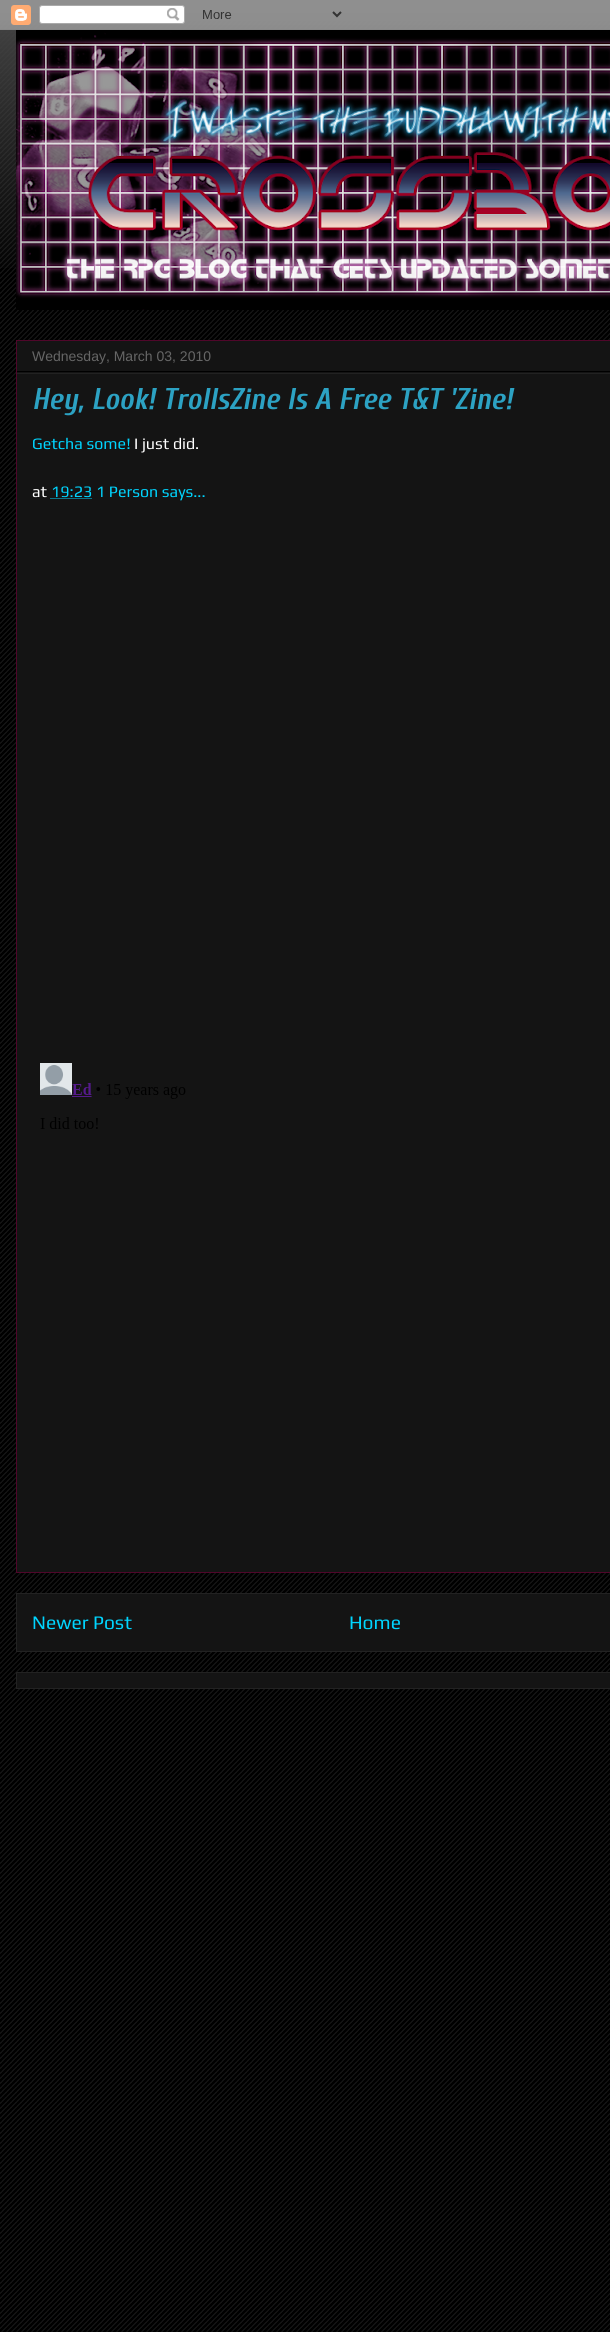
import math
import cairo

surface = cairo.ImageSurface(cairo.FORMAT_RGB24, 610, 2332)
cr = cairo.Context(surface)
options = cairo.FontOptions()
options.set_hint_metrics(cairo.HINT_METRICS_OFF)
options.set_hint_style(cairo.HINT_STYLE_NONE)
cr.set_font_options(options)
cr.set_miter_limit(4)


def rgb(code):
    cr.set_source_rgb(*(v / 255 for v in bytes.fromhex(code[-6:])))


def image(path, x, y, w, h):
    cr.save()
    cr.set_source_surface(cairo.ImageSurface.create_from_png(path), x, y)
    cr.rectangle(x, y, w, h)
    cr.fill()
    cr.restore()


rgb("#000000")
cr.paint()
image("img/1.png", 0, 13, 610, 2319)
image("img/2.png", 0, 0, 610, 268)
image("img/3.png", 0, 0, 610, 30)
image("img/4.png", 16, 30, 594, 280)
rgb("#141414")
cr.rectangle(16.5, 340.5, 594, 1232)
cr.fill_preserve()
rgb("#50062a")
cr.set_line_width(1)
cr.stroke()
rgb("#000000")
cr.rectangle(17, 371, 593, 1)
cr.fill()
rgb("#222222")
cr.rectangle(17, 373, 593, 1)
cr.fill()
cr.new_path()
cr.move_to(50.5, 498.5)
cr.line_to(92, 498.5)
rgb("#00d5ff")
cr.set_dash([1, 1])
cr.stroke()
image("img/5.png", 40, 1063, 146, 66)
rgb("#141414")
cr.rectangle(16.5, 1593.5, 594, 58)
cr.fill_preserve()
rgb("#222222")
cr.set_dash([])
cr.stroke()
rgb("#141414")
cr.rectangle(16.5, 1672.5, 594, 16)
cr.fill_preserve()
rgb("#222222")
cr.stroke()
cr.select_font_face("Liberation Sans")
cr.set_font_size(14)
rgb("#666666")
cr.move_to(32, 361)
cr.show_text("Wednesday, March 03, 2010")
cr.select_font_face("Cuprum", cairo.FONT_SLANT_ITALIC, cairo.FONT_WEIGHT_BOLD)
cr.set_font_size(30)
rgb("#2ca2c3")
cr.move_to(32, 409)
cr.show_text("Hey, Look! TrollsZine Is A Free T&T 'Zine!")
cr.select_font_face("Play")
cr.set_font_size(16)
rgb("#00d5ff")
cr.move_to(32, 449)
cr.show_text("Getcha some!")
rgb("#ffffff")
cr.move_to(134, 449)
cr.show_text("I just did.")
cr.move_to(32, 497)
cr.show_text("at")
rgb("#00d5ff")
cr.move_to(51, 497)
cr.show_text("19:23 1 Person says...")
cr.set_font_size(19.25)
cr.move_to(32, 1629)
cr.show_text("Newer Post")
cr.move_to(349, 1629)
cr.show_text("Home")
surface.write_to_png("page.png")
